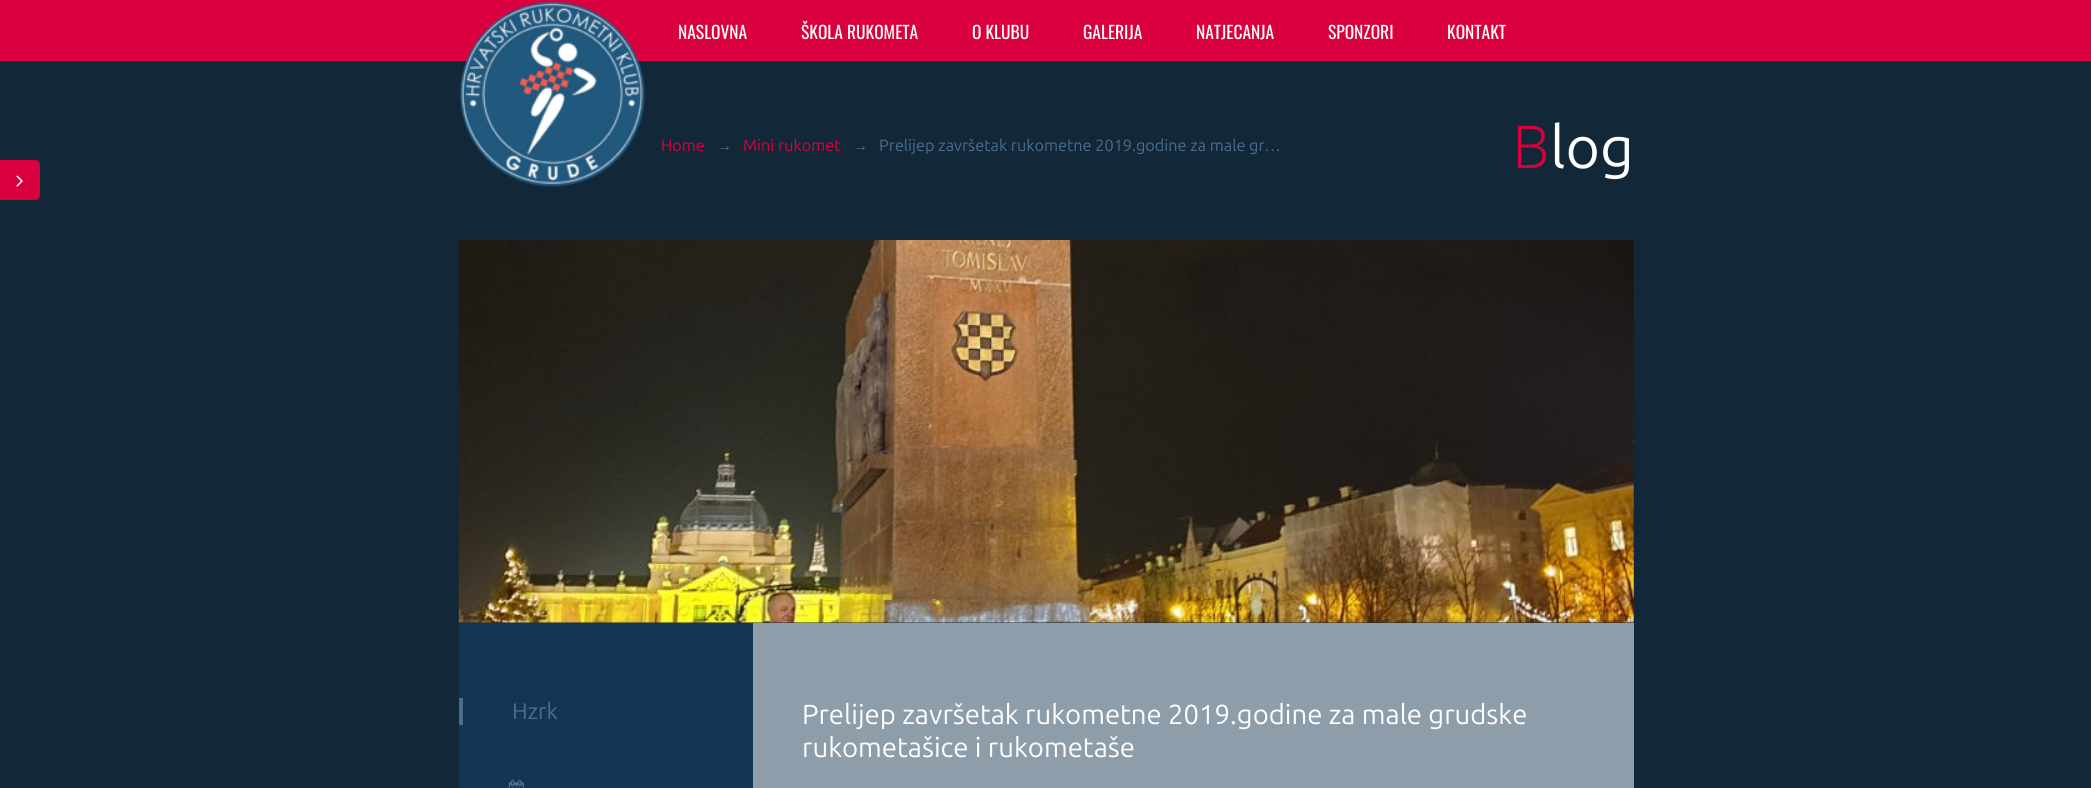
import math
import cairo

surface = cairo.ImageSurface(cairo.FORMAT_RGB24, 2091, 788)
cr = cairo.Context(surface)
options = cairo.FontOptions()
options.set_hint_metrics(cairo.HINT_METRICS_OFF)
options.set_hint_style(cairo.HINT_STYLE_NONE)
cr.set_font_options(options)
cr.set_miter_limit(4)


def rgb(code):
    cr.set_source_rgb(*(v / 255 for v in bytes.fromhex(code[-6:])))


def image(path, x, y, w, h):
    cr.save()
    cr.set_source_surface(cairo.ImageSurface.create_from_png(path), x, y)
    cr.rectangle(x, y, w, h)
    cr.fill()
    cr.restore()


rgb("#122737")
cr.paint()
rgb("#da0040")
cr.rectangle(0, 0, 2091, 61)
cr.fill()
image("img/1.png", 459, 1, 187, 186)
cr.new_path()
cr.move_to(0, 160)
cr.line_to(35, 160)
cr.curve_to(38, 160, 40, 162, 40, 165)
cr.line_to(40, 195)
cr.curve_to(40, 198, 38, 200, 35, 200)
cr.line_to(0, 200)
cr.close_path()
cr.fill()
image("img/2.png", 16, 175, 7, 12)
image("img/3.png", 458, 240, 1176, 383)
rgb("#143655")
cr.rectangle(459, 623, 294, 165)
cr.fill()
rgb("#4c6d8e")
cr.rectangle(459, 698, 4, 27)
cr.fill()
image("img/4.png", 508, 779, 16, 9)
rgb("#8d9daa")
cr.rectangle(753, 623, 881, 165)
cr.fill()
cr.select_font_face("Oswald")
cr.set_font_size(17.5)
rgb("#ffffff")
for x, y, s in [
    (678, 39, "NASLOVNA"),
    (801, 39, "ŠKOLA RUKOMETA"),
    (972, 39, "O KLUBU"),
    (1083, 39, "GALERIJA"),
    (1196, 39, "NATJECANJA"),
    (1328, 39, "SPONZORI"),
    (1447, 39, "KONTAKT"),
]:
    cr.move_to(x, y)
    cr.show_text(s)
cr.select_font_face("Ubuntu")
cr.set_font_size(16.25)
rgb("#da0040")
cr.move_to(661, 151)
cr.show_text("Home")
cr.select_font_face("Liberation Sans")
rgb("#4c6d8e")
cr.move_to(716, 151)
cr.show_text("→")
cr.select_font_face("Ubuntu")
rgb("#da0040")
cr.move_to(743, 151)
cr.show_text("Mini rukomet")
cr.select_font_face("Liberation Sans")
rgb("#4c6d8e")
cr.move_to(852, 151)
cr.show_text("→")
cr.select_font_face("Ubuntu")
cr.move_to(879, 151)
cr.show_text("Prelijep završetak rukometne 2019.godine za male gr…")
cr.select_font_face("Noto Sans Light")
cr.set_font_size(59)
rgb("#da0040")
cr.move_to(1512, 168)
cr.show_text("B")
cr.select_font_face("Ubuntu")
rgb("#ffffff")
cr.move_to(1550, 168)
cr.show_text("log")
cr.set_font_size(22.5)
rgb("#4c6d8e")
cr.move_to(512, 719)
cr.show_text("Hzrk")
cr.set_font_size(27.5)
rgb("#ffffff")
cr.move_to(802, 724)
cr.show_text("Prelijep završetak rukometne 2019.godine za male grudske")
cr.move_to(802, 757)
cr.show_text("rukometašice i rukometaše")
surface.write_to_png("page.png")
